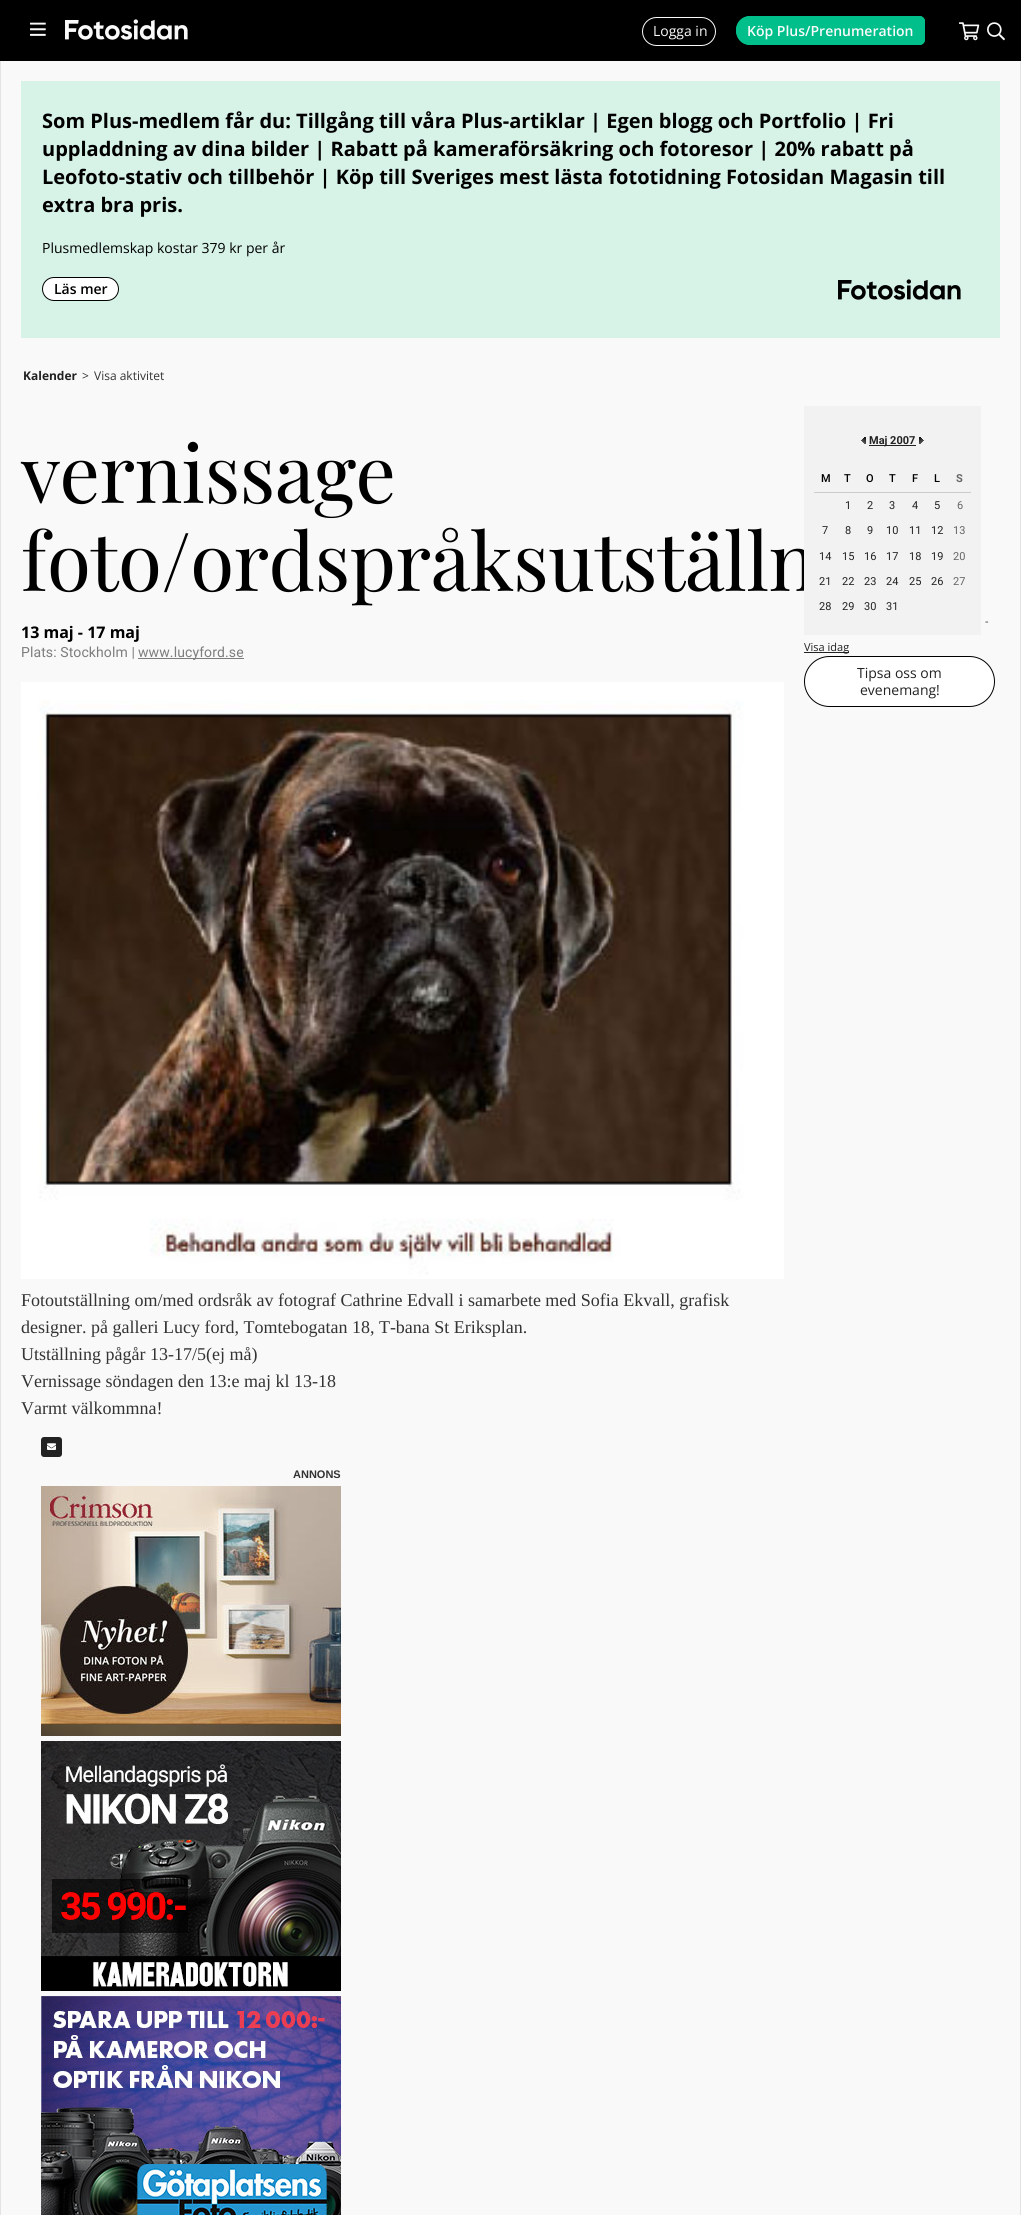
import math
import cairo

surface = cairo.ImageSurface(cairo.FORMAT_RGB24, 1021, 2215)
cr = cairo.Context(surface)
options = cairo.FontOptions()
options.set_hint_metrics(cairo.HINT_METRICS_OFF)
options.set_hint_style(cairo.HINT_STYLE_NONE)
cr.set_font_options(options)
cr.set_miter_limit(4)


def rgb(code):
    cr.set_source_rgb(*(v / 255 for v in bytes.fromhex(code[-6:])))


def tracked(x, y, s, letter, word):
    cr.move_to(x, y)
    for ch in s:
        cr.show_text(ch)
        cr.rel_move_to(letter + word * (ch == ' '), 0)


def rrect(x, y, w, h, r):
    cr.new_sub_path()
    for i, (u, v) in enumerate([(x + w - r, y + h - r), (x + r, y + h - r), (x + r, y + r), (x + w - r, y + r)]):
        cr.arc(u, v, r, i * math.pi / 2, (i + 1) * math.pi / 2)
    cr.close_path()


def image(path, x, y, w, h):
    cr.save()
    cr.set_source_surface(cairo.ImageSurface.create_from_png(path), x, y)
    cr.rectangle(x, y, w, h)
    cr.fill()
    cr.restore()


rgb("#f9f9f9")
cr.paint()
rgb("#000000")
cr.rectangle(0, 0, 1021, 61)
cr.fill()
image("img/1.png", 30, 22, 16, 14)
image("img/2.png", 65, 19, 123, 21)
rrect(642.5, 17.5, 73, 28, 14)
rgb("#fafafa")
cr.set_line_width(1)
cr.stroke()
rgb("#00bf8b")
cr.new_path()
cr.move_to(750.5, 16)
cr.line_to(914, 16)
cr.line_to(914, 45)
cr.line_to(750.5, 45)
cr.curve_to(742.5, 45, 736, 38.5, 736, 30.5)
cr.curve_to(736, 22.5, 742.5, 16, 750.5, 16)
cr.close_path()
cr.fill()
cr.set_fill_rule(cairo.FILL_RULE_EVEN_ODD)
cr.new_path()
cr.move_to(750, 16)
cr.line_to(914, 16)
cr.line_to(914, 45)
cr.line_to(750, 45)
cr.curve_to(742, 45, 736, 39, 736, 30)
cr.curve_to(736, 22, 742, 16, 750, 16)
cr.close_path()
cr.move_to(750, 17)
cr.line_to(914, 17)
cr.line_to(914, 44)
cr.line_to(750, 44)
cr.curve_to(743, 44, 737, 38, 737, 30)
cr.curve_to(737, 23, 743, 17, 750, 17)
cr.close_path()
cr.fill()
cr.new_path()
cr.move_to(914, 16)
cr.line_to(919.5, 16)
cr.curve_to(922.5, 16, 925, 18.5, 925, 21.5)
cr.line_to(925, 39.5)
cr.curve_to(925, 42.5, 922.5, 45, 919.5, 45)
cr.line_to(914, 45)
cr.close_path()
cr.fill()
cr.new_path()
cr.move_to(914, 16)
cr.line_to(919.5, 16)
cr.curve_to(922.5, 16, 925, 18.5, 925, 21.5)
cr.line_to(925, 39.5)
cr.curve_to(925, 42.5, 922.5, 45, 919.5, 45)
cr.line_to(914, 45)
cr.close_path()
cr.move_to(914, 17)
cr.line_to(919.5, 17)
cr.curve_to(922, 17, 924, 19, 924, 21.5)
cr.line_to(924, 39.5)
cr.curve_to(924, 42, 922, 44, 919.5, 44)
cr.line_to(914, 44)
cr.close_path()
cr.fill()
image("img/3.png", 959, 22, 21, 19)
image("img/4.png", 987, 22, 18, 19)
for x, y, w, h, color in [
    (1020, 61, 1, 2154, "#e3e3e3"),
    (0, 61, 1, 2154, "#e3e3e3"),
    (21, 81, 979, 257, "#d7f3e8"),
]:
    rgb(color)
    cr.rectangle(x, y, w, h)
    cr.fill()
rgb("#ffffff")
rrect(42.5, 277.5, 76, 23, 11.5)
cr.fill_preserve()
rgb("#000000")
cr.stroke()
image("img/5.png", 838, 279, 123, 21)
rgb("#7d7d7d")
cr.rectangle(138, 658, 106, 1)
cr.fill()
image("img/6.png", 21, 682, 763, 597)
rgb("#222222")
rrect(41, 1437, 21, 20, 3)
cr.fill()
image("img/7.png", 47, 1443, 9, 7)
cr.rectangle(804, 652, 45, 1)
cr.fill()
rgb("#ffffff")
rrect(804.5, 656.5, 190, 50, 25)
cr.fill_preserve()
rgb("#000000")
cr.stroke()
image("img/10.png", 41, 1486, 300, 250)
image("img/11.png", 41, 1741, 300, 250)
image("img/12.png", 41, 1996, 300, 219)
cr.select_font_face("Open Sans")
cr.set_font_size(14)
rgb("#fafafa")
cr.move_to(653, 36)
cr.show_text("Logga in")
cr.select_font_face("Open Sans SemiBold")
cr.move_to(747, 36)
cr.show_text("Köp Plus/Prenumeration")
cr.select_font_face("Open Sans", cairo.FONT_SLANT_NORMAL, cairo.FONT_WEIGHT_BOLD)
cr.set_font_size(20)
rgb("#000000")
for x, y, s in [
    (42, 128, "Som Plus-medlem får du: Tillgång till våra Plus-artiklar | Egen blogg och Portfolio | Fri"),
    (42, 156, "uppladdning av dina bilder | Rabatt på kameraförsäkring och fotoresor | 20% rabatt på"),
    (42, 184, "Leofoto-stativ och tillbehör | Köp till Sveriges mest lästa fototidning Fotosidan Magasin till"),
    (42, 212, "extra bra pris."),
]:
    cr.move_to(x, y)
    cr.show_text(s)
cr.select_font_face("Open Sans")
cr.set_font_size(14)
cr.move_to(42, 253)
cr.show_text("Plusmedlemskap kostar 379 kr per år")
cr.select_font_face("Open Sans SemiBold")
cr.move_to(54, 294)
cr.show_text("Läs mer")
cr.select_font_face("Open Sans", cairo.FONT_SLANT_NORMAL, cairo.FONT_WEIGHT_BOLD)
cr.set_font_size(12)
rgb("#222222")
cr.move_to(23, 380)
cr.show_text("Kalender")
cr.select_font_face("Open Sans")
rgb("#333333")
cr.move_to(82, 380)
cr.show_text(">")
cr.move_to(94, 380)
cr.show_text("Visa aktivitet")
cr.select_font_face("Playfair Display")
cr.set_font_size(80)
rgb("#000000")
tracked(21, 503, "vernissage", -0.6, 0)
tracked(21, 591, "foto/ordspråksutställn", -0.6, 0)
cr.select_font_face("Open Sans", cairo.FONT_SLANT_NORMAL, cairo.FONT_WEIGHT_BOLD)
cr.set_font_size(16)
cr.move_to(21, 638)
cr.show_text("13 maj - 17 maj")
cr.select_font_face("Roboto")
cr.set_font_size(14)
rgb("#7d7d7d")
tracked(21, 657, "Plats: Stockholm |", 0.1, 0)
tracked(138, 657, "www.lucyford.se", 0.1, 0)
cr.select_font_face("Liberation Serif")
cr.set_font_size(18)
rgb("#333333")
for x, y, s in [
    (21, 1306, "Fotoutställning om/med ordsråk av fotograf Cathrine Edvall i samarbete med Sofia Ekvall, grafisk"),
    (21, 1333, "designer. på galleri Lucy ford, Tomtebogatan 18, T-bana St Eriksplan."),
    (21, 1360, "Utställning pågår 13-17/5(ej må)"),
    (21, 1387, "Vernissage söndagen den 13:e maj kl 13-18"),
    (21, 1414, "Varmt välkommna!"),
]:
    cr.move_to(x, y)
    cr.show_text(s)
rgb("#f2f2f2")
cr.rectangle(804, 406, 177, 229)
cr.fill()
image("img/8.png", 861, 437, 5, 7)
rgb("#222222")
cr.rectangle(869, 445, 47, 1)
cr.fill()
cr.select_font_face("Roboto", cairo.FONT_SLANT_NORMAL, cairo.FONT_WEIGHT_BOLD)
cr.set_font_size(11)
cr.move_to(869, 444)
cr.show_text("Maj 2007")
image("img/9.png", 919, 437, 5, 7)
rgb("#cccccc")
cr.rectangle(814, 492, 157, 1)
cr.fill()
cr.select_font_face("Roboto Medium")
rgb("#000000")
for x, y, s in [
    (821, 482, "M"),
    (844, 482, "T"),
    (866, 482, "O"),
    (889, 482, "T"),
    (912, 482, "F"),
    (934, 482, "L"),
]:
    cr.move_to(x, y)
    cr.show_text(s)
cr.select_font_face("Roboto", cairo.FONT_SLANT_NORMAL, cairo.FONT_WEIGHT_BOLD)
rgb("#666666")
cr.move_to(956, 482)
cr.show_text("S")
cr.select_font_face("Roboto")
rgb("#222222")
for x, y, s in [
    (845, 509, "1"),
    (867, 509, "2"),
    (889, 509, "3"),
    (912, 509, "4"),
    (934, 509, "5"),
]:
    cr.move_to(x, y)
    cr.show_text(s)
rgb("#666666")
cr.move_to(957, 509)
cr.show_text("6")
rgb("#222222")
for x, y, s in [
    (822, 534, "7"),
    (845, 534, "8"),
    (867, 534, "9"),
    (886, 534, "10"),
    (909, 534, "11"),
    (931, 534, "12"),
]:
    cr.move_to(x, y)
    cr.show_text(s)
rgb("#666666")
cr.move_to(953, 534)
cr.show_text("13")
rgb("#222222")
for x, y, s in [
    (819, 560, "14"),
    (842, 560, "15"),
    (864, 560, "16"),
    (886, 560, "17"),
    (909, 560, "18"),
    (931, 560, "19"),
]:
    cr.move_to(x, y)
    cr.show_text(s)
rgb("#666666")
cr.move_to(953, 560)
cr.show_text("20")
rgb("#222222")
for x, y, s in [
    (819, 585, "21"),
    (842, 585, "22"),
    (864, 585, "23"),
    (886, 585, "24"),
    (909, 585, "25"),
    (931, 585, "26"),
]:
    cr.move_to(x, y)
    cr.show_text(s)
rgb("#666666")
cr.move_to(953, 585)
cr.show_text("27")
rgb("#222222")
for x, y, s in [
    (819, 610, "28"),
    (842, 610, "29"),
    (864, 610, "30"),
    (886, 610, "31"),
]:
    cr.move_to(x, y)
    cr.show_text(s)
cr.select_font_face("Open Sans")
rgb("#333333")
cr.move_to(985, 625)
cr.show_text("-")
rgb("#222222")
cr.move_to(804, 651)
cr.show_text("Visa idag")
cr.set_font_size(14)
cr.move_to(857, 678)
cr.show_text("Tipsa oss om")
cr.move_to(860, 695)
cr.show_text("evenemang!")
cr.select_font_face("Liberation Sans", cairo.FONT_SLANT_NORMAL, cairo.FONT_WEIGHT_BOLD)
cr.set_font_size(11)
rgb("#333333")
cr.move_to(293, 1478)
cr.show_text("ANNONS")
surface.write_to_png("page.png")
